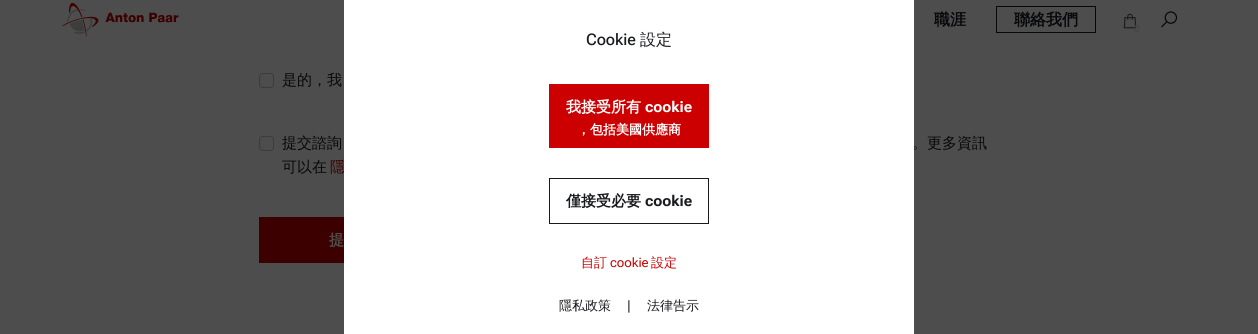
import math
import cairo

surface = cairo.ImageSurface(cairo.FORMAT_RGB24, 1258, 334)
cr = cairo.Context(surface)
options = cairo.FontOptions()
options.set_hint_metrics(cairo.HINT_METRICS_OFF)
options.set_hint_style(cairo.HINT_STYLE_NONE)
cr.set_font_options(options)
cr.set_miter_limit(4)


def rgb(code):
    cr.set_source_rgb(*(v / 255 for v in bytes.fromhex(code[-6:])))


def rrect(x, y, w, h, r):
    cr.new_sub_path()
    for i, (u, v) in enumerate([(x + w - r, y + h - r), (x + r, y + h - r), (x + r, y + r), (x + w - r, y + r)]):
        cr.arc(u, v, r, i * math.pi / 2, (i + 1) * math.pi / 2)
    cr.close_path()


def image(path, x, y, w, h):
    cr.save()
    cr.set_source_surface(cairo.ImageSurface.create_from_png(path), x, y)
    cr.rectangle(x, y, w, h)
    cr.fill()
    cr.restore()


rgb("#4d4d4d")
cr.paint()
image("img/1.png", 62, 3, 117, 34)
cr.rectangle(996.5, 6.5, 99, 26)
rgb("#070809")
cr.set_line_width(1)
cr.stroke()
image("img/2.png", 1123, 13, 14, 16)
image("img/3.png", 1161, 11, 17, 17)
rrect(259.5, 73.5, 14, 14, 3.5)
rgb("#3b3b3d")
cr.stroke()
rrect(259.5, 136.5, 14, 14, 3.5)
cr.stroke()
rgb("#3d0000")
cr.rectangle(259, 217, 85, 46)
cr.fill()
cr.select_font_face("WenQuanYi Zen Hei", cairo.FONT_SLANT_NORMAL, cairo.FONT_WEIGHT_BOLD)
cr.set_font_size(16)
rgb("#070809")
cr.move_to(934, 25)
cr.show_text("職涯")
cr.move_to(1014, 25)
cr.show_text("聯絡我們")
cr.select_font_face("Roboto Flex")
cr.set_font_size(10)
rgb("#444444")
cr.move_to(1134, 32)
cr.show_text("0")
cr.select_font_face("WenQuanYi Zen Hei Medium")
cr.set_font_size(15)
rgb("#070809")
for x, y, s in [
    (282, 85, "是的，我"),
    (282, 148, "提交諮詢"),
    (912, 148, "。更多資訊"),
    (282, 172, "可以在"),
]:
    cr.move_to(x, y)
    cr.show_text(s)
rgb("#3d0000")
cr.move_to(330, 172)
cr.show_text("隱")
rgb("#ffffff")
cr.rectangle(344, 0, 570, 334)
cr.fill()
cr.set_font_size(13)
rgb("#181a1e")
cr.move_to(647, 310)
cr.show_text("法律告示")
cr.select_font_face("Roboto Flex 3")
cr.move_to(627, 310)
cr.show_text("|")
cr.select_font_face("WenQuanYi Zen Hei Medium")
cr.move_to(559, 310)
cr.show_text("隱私政策")
rgb("#cc0000")
cr.move_to(651, 267)
cr.show_text("設定")
cr.select_font_face("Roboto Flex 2")
cr.move_to(610, 267)
cr.show_text("cookie")
cr.select_font_face("WenQuanYi Zen Hei Medium")
cr.move_to(581, 267)
cr.show_text("自訂")
cr.rectangle(549.5, 178.5, 159, 45)
rgb("#181a1e")
cr.stroke()
cr.select_font_face("Roboto Flex", cairo.FONT_SLANT_NORMAL, cairo.FONT_WEIGHT_BOLD)
cr.set_font_size(15)
cr.move_to(645, 206)
cr.show_text("cookie")
cr.select_font_face("WenQuanYi Zen Hei", cairo.FONT_SLANT_NORMAL, cairo.FONT_WEIGHT_BOLD)
cr.move_to(566, 206)
cr.show_text("僅接受必要")
rgb("#cc0000")
cr.rectangle(549, 84, 160, 64)
cr.fill()
cr.set_font_size(13)
rgb("#ffffff")
cr.move_to(577, 134)
cr.show_text("，包括美國供應商")
cr.select_font_face("Roboto Flex", cairo.FONT_SLANT_NORMAL, cairo.FONT_WEIGHT_BOLD)
cr.set_font_size(15)
cr.move_to(645, 112)
cr.show_text("cookie")
cr.select_font_face("WenQuanYi Zen Hei", cairo.FONT_SLANT_NORMAL, cairo.FONT_WEIGHT_BOLD)
cr.move_to(566, 112)
cr.show_text("我接受所有")
cr.select_font_face("WenQuanYi Zen Hei Medium")
cr.set_font_size(16)
rgb("#181a1e")
cr.move_to(640, 45)
cr.show_text("設定")
cr.select_font_face("Roboto Flex Medium")
cr.move_to(586, 45)
cr.show_text("Cookie")
cr.select_font_face("WenQuanYi Zen Hei", cairo.FONT_SLANT_NORMAL, cairo.FONT_WEIGHT_BOLD)
cr.set_font_size(15)
rgb("#4d4d4d")
cr.move_to(329, 245)
cr.show_text("提")
surface.write_to_png("page.png")
